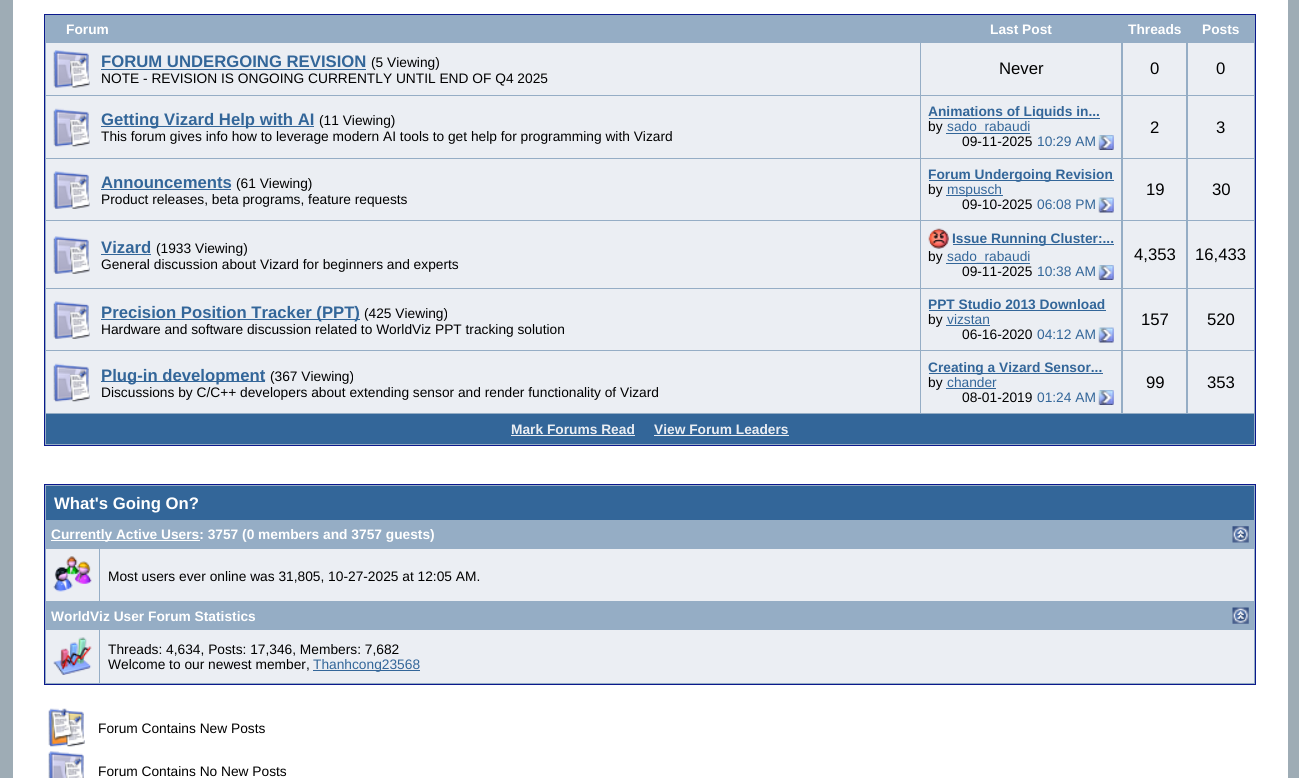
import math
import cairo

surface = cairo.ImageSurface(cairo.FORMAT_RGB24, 1299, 778)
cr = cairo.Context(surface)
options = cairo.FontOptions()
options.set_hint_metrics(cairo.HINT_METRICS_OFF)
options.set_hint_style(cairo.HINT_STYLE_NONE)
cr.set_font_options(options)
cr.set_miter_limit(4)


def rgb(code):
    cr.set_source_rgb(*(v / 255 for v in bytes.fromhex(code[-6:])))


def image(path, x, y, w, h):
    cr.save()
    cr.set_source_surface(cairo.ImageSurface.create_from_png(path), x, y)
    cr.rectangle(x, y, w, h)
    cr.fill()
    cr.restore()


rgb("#9eacb5")
cr.paint()
rgb("#ffffff")
cr.rectangle(13, 0, 1275, 778)
cr.fill()
rgb("#95adc5")
cr.rectangle(44.5, 14.5, 1211, 431)
cr.fill_preserve()
rgb("#0b198c")
cr.set_line_width(1)
cr.stroke()
rgb("#ebeef3")
cr.rectangle(46, 43, 874, 52)
cr.fill()
image("img/1.png", 53, 50, 37, 38)
for x, y, w, h, color in [
    (101, 69, 265, 1, "#336699"),
    (921, 43, 200, 52, "#ebeef3"),
    (1123, 43, 63, 52, "#ebeef3"),
    (1188, 43, 66, 52, "#ebeef3"),
    (46, 96, 874, 62, "#ebeef3"),
]:
    rgb(color)
    cr.rectangle(x, y, w, h)
    cr.fill()
image("img/2.png", 53, 108, 37, 39)
for x, y, w, h, color in [
    (101, 126, 213, 1, "#336699"),
    (921, 96, 200, 62, "#ebeef3"),
    (929, 118, 171, 1, "#336699"),
    (946, 133, 84, 1, "#336699"),
]:
    rgb(color)
    cr.rectangle(x, y, w, h)
    cr.fill()
image("img/3.png", 1098, 135, 16, 15)
for x, y, w, h, color in [
    (1123, 96, 63, 62, "#ebeef3"),
    (1188, 96, 66, 62, "#ebeef3"),
    (46, 159, 874, 61, "#ebeef3"),
]:
    rgb(color)
    cr.rectangle(x, y, w, h)
    cr.fill()
image("img/4.png", 53, 171, 37, 38)
for x, y, w, h, color in [
    (101, 189, 130, 1, "#336699"),
    (921, 159, 200, 61, "#ebeef3"),
    (929, 180, 185, 1, "#336699"),
    (946, 195, 57, 1, "#336699"),
]:
    rgb(color)
    cr.rectangle(x, y, w, h)
    cr.fill()
image("img/5.png", 1098, 197, 16, 16)
for x, y, w, h, color in [
    (1123, 159, 63, 61, "#ebeef3"),
    (1188, 159, 66, 61, "#ebeef3"),
    (46, 221, 874, 67, "#ebeef3"),
]:
    rgb(color)
    cr.rectangle(x, y, w, h)
    cr.fill()
image("img/4.png", 53, 236, 37, 38)
rgb("#336699")
cr.rectangle(101, 254, 50, 1)
cr.fill()
rgb("#ebeef3")
cr.rectangle(921, 221, 200, 67)
cr.fill()
image("img/6.png", 928, 228, 21, 21)
rgb("#336699")
cr.rectangle(953, 244, 161, 1)
cr.fill()
cr.rectangle(946, 263, 84, 1)
cr.fill()
image("img/3.png", 1098, 265, 16, 15)
for x, y, w, h, color in [
    (1123, 221, 63, 67, "#ebeef3"),
    (1188, 221, 66, 67, "#ebeef3"),
    (46, 289, 874, 61, "#ebeef3"),
]:
    rgb(color)
    cr.rectangle(x, y, w, h)
    cr.fill()
image("img/4.png", 53, 301, 37, 38)
for x, y, w, h, color in [
    (101, 319, 259, 1, "#336699"),
    (921, 289, 200, 61, "#ebeef3"),
    (929, 310, 177, 1, "#336699"),
    (946, 325, 44, 1, "#336699"),
]:
    rgb(color)
    cr.rectangle(x, y, w, h)
    cr.fill()
image("img/5.png", 1098, 327, 16, 16)
for x, y, w, h, color in [
    (1123, 289, 63, 61, "#ebeef3"),
    (1188, 289, 66, 61, "#ebeef3"),
    (46, 351, 874, 62, "#ebeef3"),
]:
    rgb(color)
    cr.rectangle(x, y, w, h)
    cr.fill()
image("img/2.png", 53, 363, 37, 39)
for x, y, w, h, color in [
    (101, 381, 164, 1, "#336699"),
    (921, 351, 200, 62, "#ebeef3"),
    (929, 373, 174, 1, "#336699"),
    (946, 388, 50, 1, "#336699"),
]:
    rgb(color)
    cr.rectangle(x, y, w, h)
    cr.fill()
image("img/3.png", 1098, 390, 16, 15)
for x, y, w, h, color in [
    (1123, 351, 63, 62, "#ebeef3"),
    (1188, 351, 66, 62, "#ebeef3"),
    (46, 414, 1208, 30, "#336699"),
    (511, 435, 124, 1, "#ebeef3"),
    (654, 435, 135, 1, "#ebeef3"),
]:
    rgb(color)
    cr.rectangle(x, y, w, h)
    cr.fill()
rgb("#95adc5")
cr.rectangle(44.5, 484.5, 1211, 200)
cr.fill_preserve()
rgb("#0b198c")
cr.stroke()
rgb("#336699")
cr.rectangle(46, 486, 1208, 34)
cr.fill()
rgb("#ffffff")
cr.rectangle(51, 540, 149, 1)
cr.fill()
image("img/7.png", 1232, 526, 17, 17)
rgb("#ebeef3")
cr.rectangle(46, 549, 53, 52)
cr.fill()
image("img/8.png", 53, 556, 39, 36)
cr.rectangle(100, 549, 1154, 52)
cr.fill()
image("img/9.png", 1232, 607, 17, 17)
cr.rectangle(46, 630, 53, 53)
cr.fill()
image("img/10.png", 53, 637, 39, 38)
cr.rectangle(100, 630, 1154, 53)
cr.fill()
rgb("#336699")
cr.rectangle(313, 670, 107, 1)
cr.fill()
image("img/11.png", 48, 708, 37, 39)
image("img/12.png", 48, 751, 36, 27)
cr.select_font_face("Liberation Sans", cairo.FONT_SLANT_NORMAL, cairo.FONT_WEIGHT_BOLD)
cr.set_font_size(13.75)
rgb("#ffffff")
for x, y, s in [
    (66, 34, "Forum"),
    (990, 34, "Last Post"),
    (1128, 34, "Threads"),
    (1202, 34, "Posts"),
]:
    cr.move_to(x, y)
    cr.show_text(s)
cr.set_font_size(16.7)
rgb("#336699")
cr.move_to(101, 67)
cr.show_text("FORUM UNDERGOING REVISION")
cr.select_font_face("Liberation Sans")
cr.set_font_size(13.75)
rgb("#000000")
cr.move_to(371, 67)
cr.show_text("(5 Viewing)")
cr.move_to(101, 83)
cr.show_text("NOTE - REVISION IS ONGOING CURRENTLY UNTIL END OF Q4 2025")
cr.set_font_size(16.7)
for x, y, s in [
    (999, 74, "Never"),
    (1150, 74, "0"),
    (1216, 74, "0"),
]:
    cr.move_to(x, y)
    cr.show_text(s)
cr.select_font_face("Liberation Sans", cairo.FONT_SLANT_NORMAL, cairo.FONT_WEIGHT_BOLD)
rgb("#336699")
cr.move_to(101, 125)
cr.show_text("Getting Vizard Help with AI")
cr.select_font_face("Liberation Sans")
cr.set_font_size(13.75)
rgb("#000000")
cr.move_to(319, 125)
cr.show_text("(11 Viewing)")
cr.move_to(101, 141)
cr.show_text("This forum gives info how to leverage modern AI tools to get help for programming with Vizard")
cr.select_font_face("Liberation Sans", cairo.FONT_SLANT_NORMAL, cairo.FONT_WEIGHT_BOLD)
rgb("#336699")
cr.move_to(928, 116)
cr.show_text("Animations of Liquids in...")
cr.select_font_face("Liberation Sans")
rgb("#000000")
cr.move_to(928, 131)
cr.show_text("by")
rgb("#336699")
cr.move_to(947, 131)
cr.show_text("sado_rabaudi")
rgb("#000000")
cr.move_to(962, 146)
cr.show_text("09-11-2025")
rgb("#336699")
cr.move_to(1037, 146)
cr.show_text("10:29 AM")
cr.set_font_size(16.7)
rgb("#000000")
cr.move_to(1150, 133)
cr.show_text("2")
cr.move_to(1216, 133)
cr.show_text("3")
cr.select_font_face("Liberation Sans", cairo.FONT_SLANT_NORMAL, cairo.FONT_WEIGHT_BOLD)
rgb("#336699")
cr.move_to(101, 188)
cr.show_text("Announcements")
cr.select_font_face("Liberation Sans")
cr.set_font_size(13.75)
rgb("#000000")
cr.move_to(236, 188)
cr.show_text("(61 Viewing)")
cr.move_to(101, 204)
cr.show_text("Product releases, beta programs, feature requests")
cr.select_font_face("Liberation Sans", cairo.FONT_SLANT_NORMAL, cairo.FONT_WEIGHT_BOLD)
rgb("#336699")
cr.move_to(928, 179)
cr.show_text("Forum Undergoing Revision")
cr.select_font_face("Liberation Sans")
rgb("#000000")
cr.move_to(928, 194)
cr.show_text("by")
rgb("#336699")
cr.move_to(947, 194)
cr.show_text("mspusch")
rgb("#000000")
cr.move_to(962, 209)
cr.show_text("09-10-2025")
rgb("#336699")
cr.move_to(1037, 209)
cr.show_text("06:08 PM")
cr.set_font_size(16.7)
rgb("#000000")
cr.move_to(1146, 195)
cr.show_text("19")
cr.move_to(1212, 195)
cr.show_text("30")
cr.select_font_face("Liberation Sans", cairo.FONT_SLANT_NORMAL, cairo.FONT_WEIGHT_BOLD)
rgb("#336699")
cr.move_to(101, 253)
cr.show_text("Vizard")
cr.select_font_face("Liberation Sans")
cr.set_font_size(13.75)
rgb("#000000")
cr.move_to(156, 253)
cr.show_text("(1933 Viewing)")
cr.move_to(101, 269)
cr.show_text("General discussion about Vizard for beginners and experts")
cr.select_font_face("Liberation Sans", cairo.FONT_SLANT_NORMAL, cairo.FONT_WEIGHT_BOLD)
rgb("#336699")
cr.move_to(952, 243)
cr.show_text("Issue Running Cluster:...")
cr.select_font_face("Liberation Sans")
rgb("#000000")
cr.move_to(928, 261)
cr.show_text("by")
rgb("#336699")
cr.move_to(947, 261)
cr.show_text("sado_rabaudi")
rgb("#000000")
cr.move_to(962, 276)
cr.show_text("09-11-2025")
rgb("#336699")
cr.move_to(1037, 276)
cr.show_text("10:38 AM")
cr.set_font_size(16.7)
rgb("#000000")
cr.move_to(1134, 260)
cr.show_text("4,353")
cr.move_to(1195, 260)
cr.show_text("16,433")
cr.select_font_face("Liberation Sans", cairo.FONT_SLANT_NORMAL, cairo.FONT_WEIGHT_BOLD)
rgb("#336699")
cr.move_to(101, 318)
cr.show_text("Precision Position Tracker (PPT)")
cr.select_font_face("Liberation Sans")
cr.set_font_size(13.75)
rgb("#000000")
cr.move_to(364, 318)
cr.show_text("(425 Viewing)")
cr.move_to(101, 334)
cr.show_text("Hardware and software discussion related to WorldViz PPT tracking solution")
cr.select_font_face("Liberation Sans", cairo.FONT_SLANT_NORMAL, cairo.FONT_WEIGHT_BOLD)
rgb("#336699")
cr.move_to(928, 309)
cr.show_text("PPT Studio 2013 Download")
cr.select_font_face("Liberation Sans")
rgb("#000000")
cr.move_to(928, 324)
cr.show_text("by")
rgb("#336699")
cr.move_to(947, 324)
cr.show_text("vizstan")
rgb("#000000")
cr.move_to(962, 339)
cr.show_text("06-16-2020")
rgb("#336699")
cr.move_to(1037, 339)
cr.show_text("04:12 AM")
cr.set_font_size(16.7)
rgb("#000000")
cr.move_to(1141, 325)
cr.show_text("157")
cr.move_to(1207, 325)
cr.show_text("520")
cr.select_font_face("Liberation Sans", cairo.FONT_SLANT_NORMAL, cairo.FONT_WEIGHT_BOLD)
rgb("#336699")
cr.move_to(101, 381)
cr.show_text("Plug-in development")
cr.select_font_face("Liberation Sans")
cr.set_font_size(13.75)
rgb("#000000")
cr.move_to(270, 381)
cr.show_text("(367 Viewing)")
cr.move_to(101, 397)
cr.show_text("Discussions by C/C++ developers about extending sensor and render functionality of Vizard")
cr.select_font_face("Liberation Sans", cairo.FONT_SLANT_NORMAL, cairo.FONT_WEIGHT_BOLD)
rgb("#336699")
cr.move_to(928, 372)
cr.show_text("Creating a Vizard Sensor...")
cr.select_font_face("Liberation Sans")
rgb("#000000")
cr.move_to(928, 387)
cr.show_text("by")
rgb("#336699")
cr.move_to(947, 387)
cr.show_text("chander")
rgb("#000000")
cr.move_to(962, 402)
cr.show_text("08-01-2019")
rgb("#336699")
cr.move_to(1037, 402)
cr.show_text("01:24 AM")
cr.set_font_size(16.7)
rgb("#000000")
cr.move_to(1146, 388)
cr.show_text("99")
cr.move_to(1207, 388)
cr.show_text("353")
cr.select_font_face("Liberation Sans", cairo.FONT_SLANT_NORMAL, cairo.FONT_WEIGHT_BOLD)
cr.set_font_size(13.75)
rgb("#ebeef3")
cr.move_to(511, 434)
cr.show_text("Mark Forums Read")
cr.move_to(654, 434)
cr.show_text("View Forum Leaders")
cr.set_font_size(16.7)
rgb("#ffffff")
cr.move_to(54, 509)
cr.show_text("What's Going On?")
cr.set_font_size(13.75)
cr.move_to(51, 539)
cr.show_text("Currently Active Users: 3757 (0 members and 3757 guests)")
cr.select_font_face("Liberation Sans")
rgb("#000000")
cr.move_to(108, 581)
cr.show_text("Most users ever online was 31,805, 10-27-2025 at 12:05 AM.")
cr.select_font_face("Liberation Sans", cairo.FONT_SLANT_NORMAL, cairo.FONT_WEIGHT_BOLD)
rgb("#ffffff")
cr.move_to(51, 621)
cr.show_text("WorldViz User Forum Statistics")
cr.select_font_face("Liberation Sans")
rgb("#000000")
cr.move_to(108, 654)
cr.show_text("Threads: 4,634, Posts: 17,346, Members: 7,682")
cr.move_to(108, 669)
cr.show_text("Welcome to our newest member,")
rgb("#336699")
cr.move_to(313, 669)
cr.show_text("Thanhcong23568")
rgb("#000000")
cr.move_to(98, 733)
cr.show_text("Forum Contains New Posts")
cr.move_to(98, 776)
cr.show_text("Forum Contains No New Posts")
surface.write_to_png("page.png")
